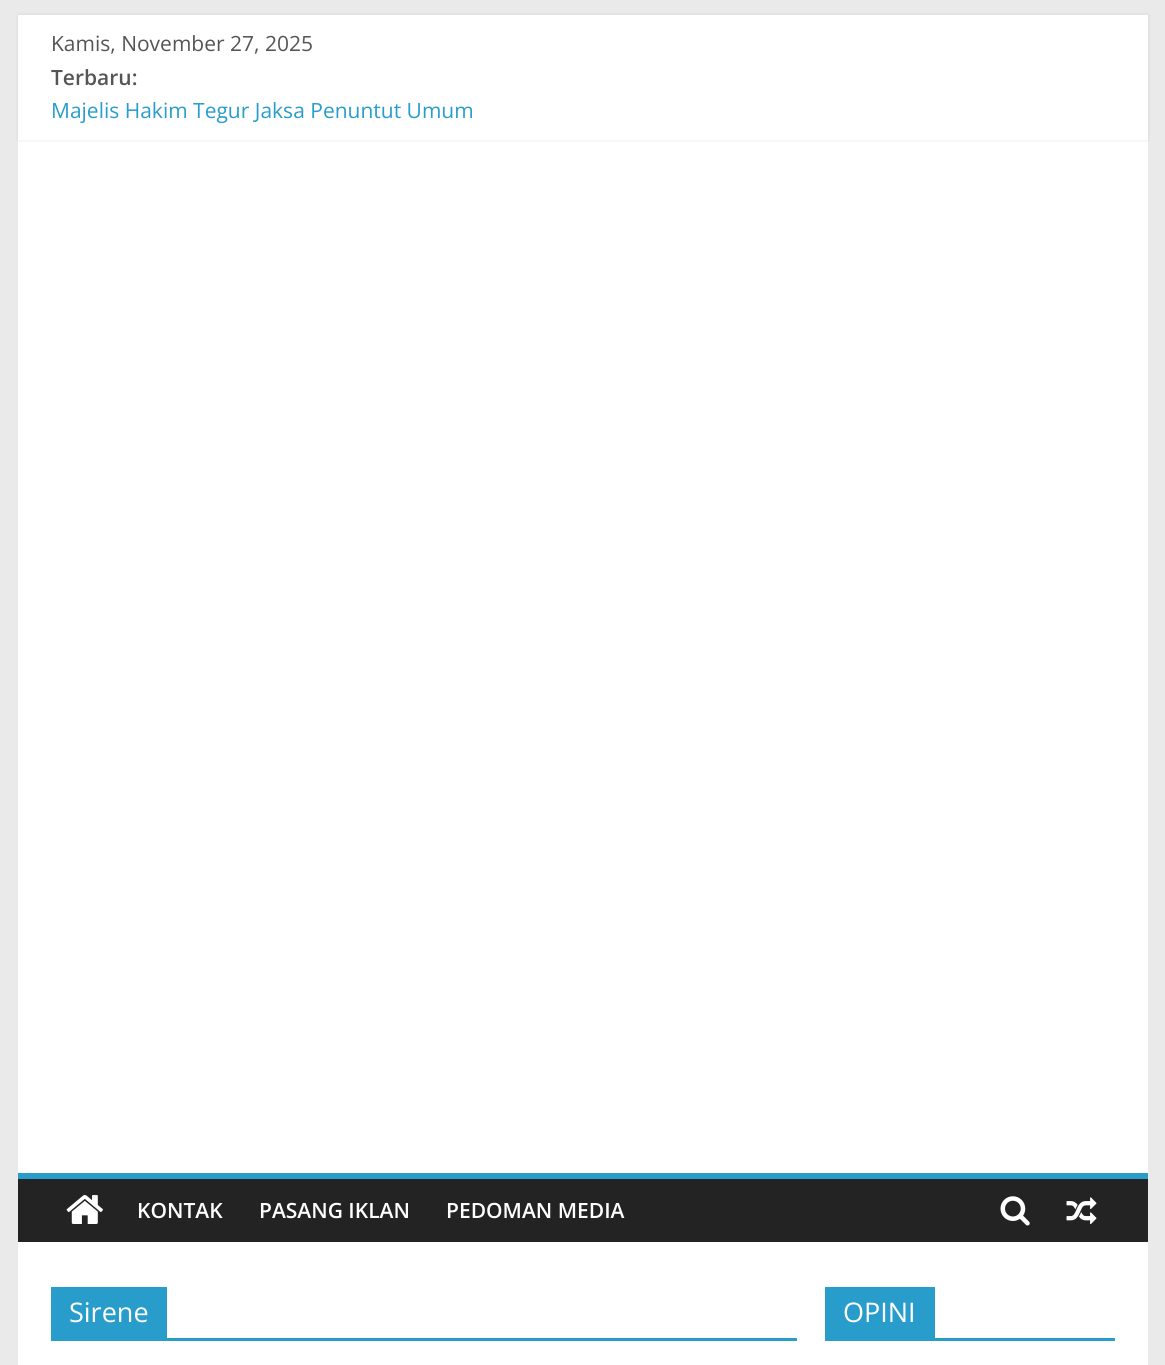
import math
import cairo

surface = cairo.ImageSurface(cairo.FORMAT_RGB24, 1165, 1365)
cr = cairo.Context(surface)
options = cairo.FontOptions()
options.set_hint_metrics(cairo.HINT_METRICS_OFF)
options.set_hint_style(cairo.HINT_STYLE_NONE)
cr.set_font_options(options)
cr.set_miter_limit(4)


def rgb(code):
    cr.set_source_rgb(*(v / 255 for v in bytes.fromhex(code[-6:])))


def rrect(x, y, w, h, r):
    cr.new_sub_path()
    for i, (u, v) in enumerate([(x + w - r, y + h - r), (x + r, y + h - r), (x + r, y + r), (x + w - r, y + r)]):
        cr.arc(u, v, r, i * math.pi / 2, (i + 1) * math.pi / 2)
    cr.close_path()


def soft_shadow(x, y, w, h, r, blur, alpha):
    cr.push_group_with_content(cairo.CONTENT_ALPHA)
    cr.set_operator(cairo.OPERATOR_SOURCE)
    for i in range(15, -16, -2):
        e = blur * i / 6
        if min(w, h) + 2 * e > 0:
            cr.set_source_rgba(0, 0, 0, alpha * math.erfc((i - 1) / 8.5) / 2)
            rrect(x - e, y - e, w + 2 * e, h + 2 * e, max(0, min(r + e + blur * .6, min(w, h) / 2 + e)))
            cr.fill()
    cr.mask(cr.pop_group())


def image(path, x, y, w, h):
    cr.save()
    cr.set_source_surface(cairo.ImageSurface.create_from_png(path), x, y)
    cr.rectangle(x, y, w, h)
    cr.fill()
    cr.restore()


rgb("#eaeaea")
cr.paint()
rgb("#ffffff")
cr.rectangle(18, 140, 1130, 1033)
cr.fill()
rgb("#000000")
soft_shadow(18, 15, 1130, 125, 0, 1.5, 0.1)
for x, y, w, h, color in [
    (18, 15, 1130, 125, "#ffffff"),
    (18, 1179, 1130, 63, "#232323"),
    (18, 1173, 1130, 6, "#289dcc"),
]:
    rgb(color)
    cr.rectangle(x, y, w, h)
    cr.fill()
image("img/1.png", 66, 1195, 37, 29)
image("img/2.png", 1000, 1196, 30, 30)
image("img/3.png", 1066, 1197, 31, 28)
for x, y, w, h, color in [
    (18, 1242, 1130, 123, "#ffffff"),
    (51, 1338, 746, 3, "#289dcc"),
    (51, 1287, 116, 51, "#289dcc"),
    (825, 1338, 290, 3, "#289dcc"),
    (825, 1287, 110, 51, "#289dcc"),
]:
    rgb(color)
    cr.rectangle(x, y, w, h)
    cr.fill()
cr.select_font_face("Open Sans")
cr.set_font_size(21)
rgb("#555555")
cr.move_to(51, 51)
cr.show_text("Kamis, November 27, 2025")
cr.select_font_face("Open Sans SemiBold")
cr.move_to(51, 85)
cr.show_text("Terbaru:")
cr.select_font_face("Open Sans")
rgb("#289dcc")
cr.move_to(51, 118)
cr.show_text("Majelis Hakim Tegur Jaksa Penuntut Umum")
cr.select_font_face("Open Sans SemiBold")
rgb("#ffffff")
for x, y, s in [
    (137, 1218, "KONTAK"),
    (259, 1218, "PASANG IKLAN"),
    (446, 1218, "PEDOMAN MEDIA"),
]:
    cr.move_to(x, y)
    cr.show_text(s)
cr.select_font_face("Open Sans")
cr.set_font_size(27)
cr.move_to(69, 1322)
cr.show_text("Sirene")
cr.move_to(843, 1322)
cr.show_text("OPINI")
surface.write_to_png("page.png")
